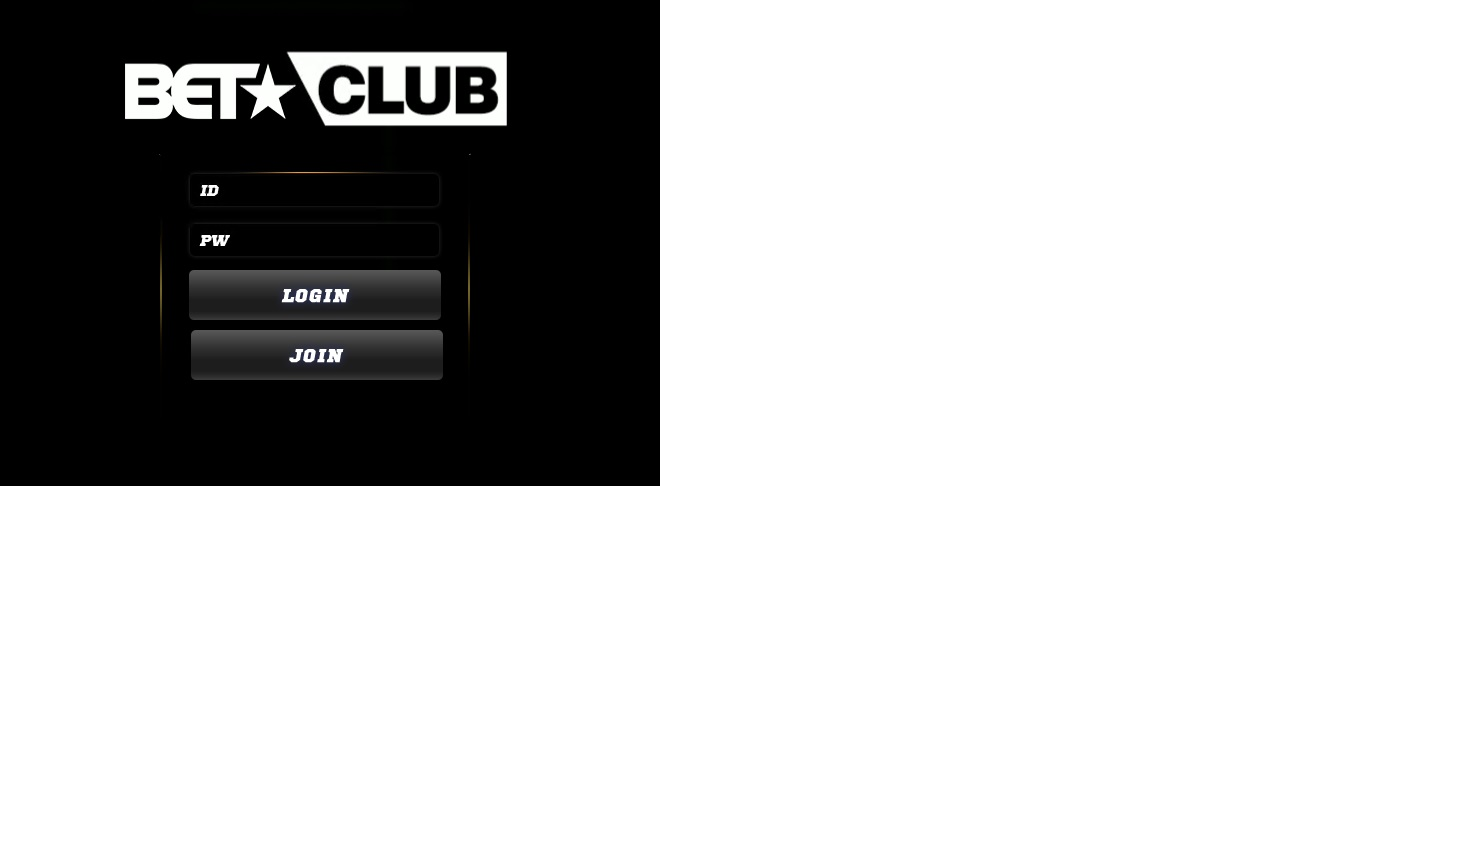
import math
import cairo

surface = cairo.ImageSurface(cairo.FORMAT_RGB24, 1466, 856)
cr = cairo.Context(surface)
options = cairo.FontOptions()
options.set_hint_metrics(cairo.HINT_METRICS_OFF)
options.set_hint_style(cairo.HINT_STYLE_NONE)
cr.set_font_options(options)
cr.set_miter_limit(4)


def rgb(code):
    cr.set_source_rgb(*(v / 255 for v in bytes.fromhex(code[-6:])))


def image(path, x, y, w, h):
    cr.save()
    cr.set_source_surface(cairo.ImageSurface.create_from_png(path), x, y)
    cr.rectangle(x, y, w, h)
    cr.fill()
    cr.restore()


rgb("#ffffff")
cr.paint()
image("img/1.png", 0, 0, 660, 486)
surface.write_to_png("page.png")
